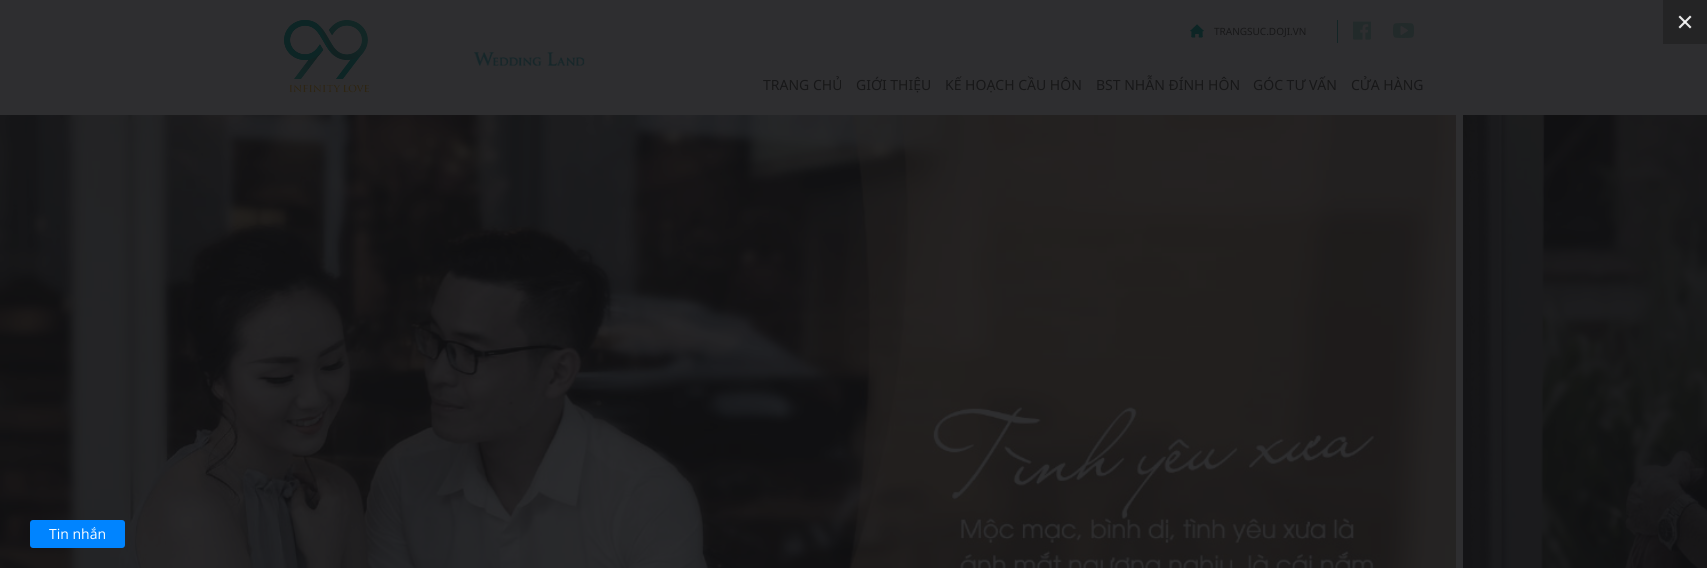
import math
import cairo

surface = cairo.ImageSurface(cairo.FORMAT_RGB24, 1707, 568)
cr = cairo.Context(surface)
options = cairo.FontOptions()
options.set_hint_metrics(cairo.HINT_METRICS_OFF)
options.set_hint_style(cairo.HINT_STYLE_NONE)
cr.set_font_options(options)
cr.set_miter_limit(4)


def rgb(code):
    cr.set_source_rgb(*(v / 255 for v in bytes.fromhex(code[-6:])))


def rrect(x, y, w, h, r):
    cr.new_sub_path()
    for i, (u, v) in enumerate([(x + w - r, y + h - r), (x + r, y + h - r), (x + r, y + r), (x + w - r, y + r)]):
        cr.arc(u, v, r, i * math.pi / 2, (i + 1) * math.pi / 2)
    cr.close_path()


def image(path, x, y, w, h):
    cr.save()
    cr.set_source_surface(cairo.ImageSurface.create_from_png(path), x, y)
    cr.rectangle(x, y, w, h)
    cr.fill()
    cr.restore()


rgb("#2e2e30")
cr.paint()
rgb("#242425")
cr.rectangle(1663, 0, 44, 44)
cr.fill()
rgb("#e9e9e9")
cr.new_path()
cr.move_to(1680, 15.5)
cr.line_to(1691.5, 27)
cr.line_to(1690, 28.5)
cr.line_to(1678.5, 17)
cr.close_path()
cr.fill()
cr.set_source_rgba(1, 1, 1, 0.9)
cr.new_path()
cr.move_to(1678.5, 27)
cr.line_to(1690, 15.5)
cr.line_to(1691.5, 17)
cr.line_to(1680, 28.5)
cr.close_path()
cr.fill()
rgb("#132526")
cr.rectangle(1337, 20, 1, 23)
cr.fill()
image("img/1.png", 1190, 24, 14, 14)
image("img/2.png", 1353, 21, 18, 19)
image("img/3.png", 1393, 23, 21, 15)
image("img/4.png", 284, 20, 85, 73)
image("img/5.png", 473, 52, 112, 14)
image("img/6.png", 0, 115, 1456, 453)
image("img/7.png", 1463, 115, 244, 453)
rgb("#0084ff")
rrect(30, 520, 95, 28, 3)
cr.fill()
cr.select_font_face("Noto Sans")
cr.set_font_size(10)
rgb("#171718")
cr.move_to(1214, 35)
cr.show_text("TRANGSUC.DOJI.VN")
cr.set_font_size(14)
for x, y, s in [
    (763, 90, "TRANG CHỦ"),
    (856, 90, "GIỚI THIỆU"),
    (945, 90, "KẾ HOẠCH CẦU HÔN"),
    (1096, 90, "BST NHẪN ĐÍNH HÔN"),
    (1253, 90, "GÓC TƯ VẤN"),
    (1351, 90, "CỬA HÀNG"),
]:
    cr.move_to(x, y)
    cr.show_text(s)
cr.select_font_face("Open Sans")
rgb("#ffffff")
cr.move_to(49, 539)
cr.show_text("Tin nhắn")
surface.write_to_png("page.png")
